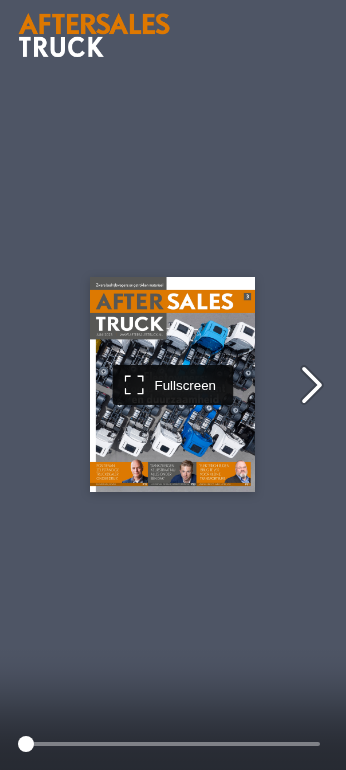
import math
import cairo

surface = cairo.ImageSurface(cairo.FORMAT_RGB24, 346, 770)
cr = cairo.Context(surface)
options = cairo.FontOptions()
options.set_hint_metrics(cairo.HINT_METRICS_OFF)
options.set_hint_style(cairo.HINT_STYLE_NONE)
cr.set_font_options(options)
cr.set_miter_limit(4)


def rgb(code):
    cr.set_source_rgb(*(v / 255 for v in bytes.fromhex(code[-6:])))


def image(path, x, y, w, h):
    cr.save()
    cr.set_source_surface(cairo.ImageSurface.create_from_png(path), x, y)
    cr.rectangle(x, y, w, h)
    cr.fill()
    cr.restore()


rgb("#4e5565")
cr.paint()
image("img/1.png", 0, 13, 346, 757)
surface.write_to_png("page.png")
